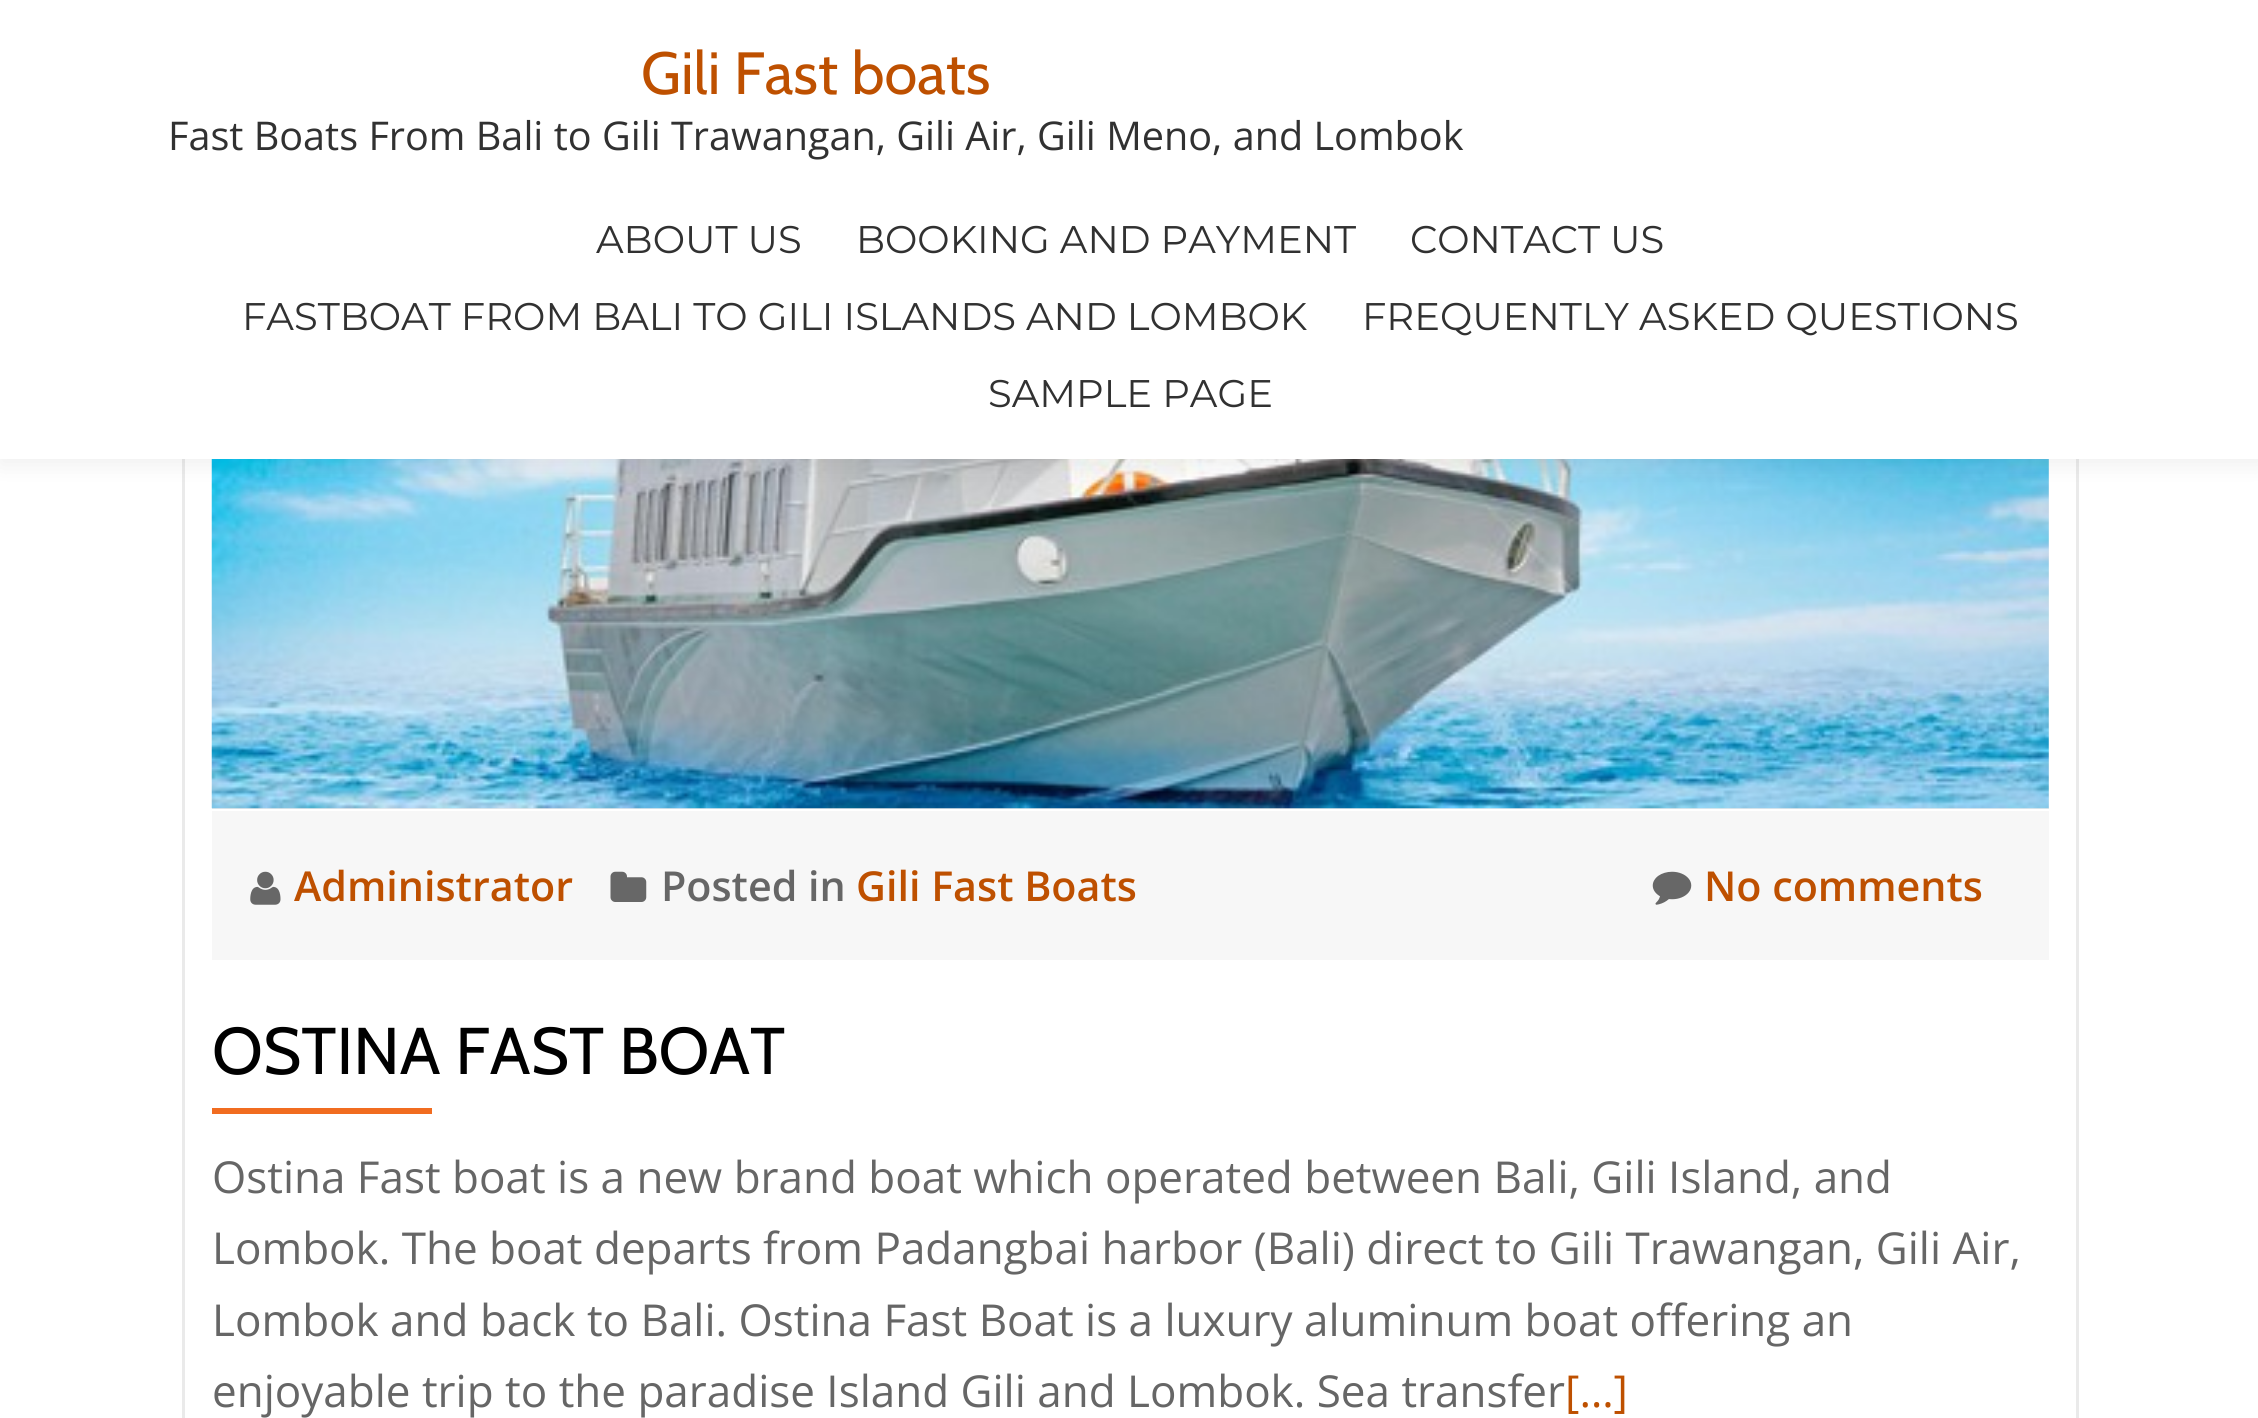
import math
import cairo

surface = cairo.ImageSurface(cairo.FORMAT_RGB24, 2258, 1418)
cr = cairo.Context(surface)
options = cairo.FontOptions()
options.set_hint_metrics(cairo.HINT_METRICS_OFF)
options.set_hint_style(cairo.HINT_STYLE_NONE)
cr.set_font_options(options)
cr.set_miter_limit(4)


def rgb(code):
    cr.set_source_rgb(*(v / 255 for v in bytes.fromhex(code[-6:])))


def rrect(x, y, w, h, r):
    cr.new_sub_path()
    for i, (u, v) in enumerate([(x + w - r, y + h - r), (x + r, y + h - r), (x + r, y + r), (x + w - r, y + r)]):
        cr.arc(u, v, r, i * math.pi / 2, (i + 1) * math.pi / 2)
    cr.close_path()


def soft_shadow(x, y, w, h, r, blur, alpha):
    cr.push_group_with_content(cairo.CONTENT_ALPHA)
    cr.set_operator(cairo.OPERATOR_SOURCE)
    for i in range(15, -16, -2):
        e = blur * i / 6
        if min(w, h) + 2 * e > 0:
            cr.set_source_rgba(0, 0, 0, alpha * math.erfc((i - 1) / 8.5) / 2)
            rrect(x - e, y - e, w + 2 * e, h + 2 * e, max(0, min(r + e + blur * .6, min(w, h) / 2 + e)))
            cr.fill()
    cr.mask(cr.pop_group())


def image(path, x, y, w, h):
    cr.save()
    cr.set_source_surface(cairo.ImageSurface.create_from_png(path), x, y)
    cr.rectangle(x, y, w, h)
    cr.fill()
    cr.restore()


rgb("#ffffff")
cr.paint()
cr.rectangle(183.5, -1.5, 1894, 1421)
rgb("#eaeaea")
cr.set_line_width(3)
cr.stroke()
cr.rectangle(212, 459, 1837, 350)
cr.fill()
image("img/1.png", 211, 459, 1838, 350)
rgb("#323232")
soft_shadow(0, -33, 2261, 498, 0, 11, 0.08)
rgb("#ffffff")
cr.rectangle(0, 0, 2258, 459)
cr.fill()
rgb("#f7f7f7")
cr.rectangle(212, 811, 1837, 149)
cr.fill()
image("img/2.png", 250, 871, 31, 34)
image("img/3.png", 610, 871, 37, 31)
image("img/4.png", 1652, 871, 40, 34)
rgb("#f16c20")
cr.rectangle(212, 1108, 220, 6)
cr.fill()
cr.select_font_face("Cabin")
cr.set_font_size(59.5)
rgb("#be5000")
cr.move_to(641, 94)
cr.show_text("Gili Fast boats")
cr.select_font_face("Open Sans")
cr.set_font_size(39.6)
rgb("#313131")
cr.move_to(168, 150)
cr.show_text("Fast Boats From Bali to Gili Trawangan, Gili Air, Gili Meno, and Lombok")
cr.select_font_face("Montserrat")
cr.set_font_size(38.5)
for x, y, s in [
    (596, 253, "ABOUT US"),
    (856, 253, "BOOKING AND PAYMENT"),
    (1410, 253, "CONTACT US"),
    (242, 330, "FASTBOAT FROM BALI TO GILI ISLANDS AND LOMBOK"),
    (1362, 330, "FREQUENTLY ASKED QUESTIONS"),
    (988, 407, "SAMPLE PAGE"),
]:
    cr.move_to(x, y)
    cr.show_text(s)
cr.select_font_face("Open Sans SemiBold")
cr.set_font_size(41.25)
rgb("#be5000")
cr.move_to(294, 901)
cr.show_text("Administrator")
rgb("#666666")
cr.move_to(661, 901)
cr.show_text("Posted in")
rgb("#be5000")
cr.move_to(856, 901)
cr.show_text("Gili Fast Boats")
cr.move_to(1704, 901)
cr.show_text("No comments")
cr.select_font_face("Cabin")
cr.set_font_size(66)
rgb("#000000")
cr.move_to(212, 1074)
cr.show_text("OSTINA FAST BOAT")
cr.select_font_face("Open Sans")
cr.set_font_size(44)
rgb("#666666")
for x, y, s in [
    (212, 1193, "Ostina Fast boat is a new brand boat which operated between Bali, Gili Island, and"),
    (212, 1264, "Lombok. The boat departs from Padangbai harbor (Bali) direct to Gili Trawangan, Gili Air,"),
    (212, 1336, "Lombok and back to Bali. Ostina Fast Boat is a luxury aluminum boat offering an"),
    (212, 1407, "enjoyable trip to the paradise Island Gili and Lombok. Sea transfer"),
]:
    cr.move_to(x, y)
    cr.show_text(s)
rgb("#be5000")
cr.move_to(1565, 1407)
cr.show_text("[…]")
surface.write_to_png("page.png")
